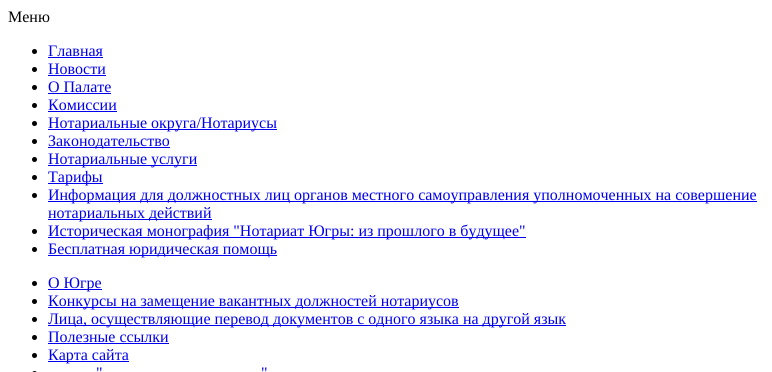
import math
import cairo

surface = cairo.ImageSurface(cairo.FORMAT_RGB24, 772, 372)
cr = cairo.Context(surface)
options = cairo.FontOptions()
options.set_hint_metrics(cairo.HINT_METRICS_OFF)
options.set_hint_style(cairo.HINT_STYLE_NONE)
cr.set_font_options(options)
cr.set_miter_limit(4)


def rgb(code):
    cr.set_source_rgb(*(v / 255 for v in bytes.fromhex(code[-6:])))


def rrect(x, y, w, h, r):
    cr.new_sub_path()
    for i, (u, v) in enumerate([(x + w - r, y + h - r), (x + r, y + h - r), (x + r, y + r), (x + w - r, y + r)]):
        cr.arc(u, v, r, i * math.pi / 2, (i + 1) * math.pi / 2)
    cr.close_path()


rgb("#ffffff")
cr.paint()
rgb("#000000")
cr.arc(34.5, 51.5, 2.5, 0, 2 * math.pi)
cr.fill()
rgb("#0000ee")
cr.rectangle(48, 57, 55, 1)
cr.fill()
rgb("#000000")
cr.arc(34.5, 69.5, 2.5, 0, 2 * math.pi)
cr.fill()
rgb("#0000ee")
cr.rectangle(48, 75, 58, 1)
cr.fill()
rgb("#000000")
cr.arc(34.5, 87.5, 2.5, 0, 2 * math.pi)
cr.fill()
rgb("#0000ee")
cr.rectangle(48, 93, 63, 1)
cr.fill()
rgb("#000000")
cr.arc(34.5, 105.5, 2.5, 0, 2 * math.pi)
cr.fill()
rgb("#0000ee")
cr.rectangle(48, 111, 69, 1)
cr.fill()
rgb("#000000")
cr.arc(34.5, 123.5, 2.5, 0, 2 * math.pi)
cr.fill()
rgb("#0000ee")
cr.rectangle(48, 129, 229, 1)
cr.fill()
rgb("#000000")
cr.arc(34.5, 141.5, 2.5, 0, 2 * math.pi)
cr.fill()
rgb("#0000ee")
cr.rectangle(48, 147, 122, 1)
cr.fill()
rgb("#000000")
cr.arc(34.5, 159.5, 2.5, 0, 2 * math.pi)
cr.fill()
rgb("#0000ee")
cr.rectangle(48, 165, 149, 1)
cr.fill()
rgb("#000000")
cr.arc(34.5, 177.5, 2.5, 0, 2 * math.pi)
cr.fill()
rgb("#0000ee")
cr.rectangle(48, 183, 55, 1)
cr.fill()
rgb("#000000")
cr.arc(34.5, 195.5, 2.5, 0, 2 * math.pi)
cr.fill()
rgb("#0000ee")
cr.rectangle(48, 201, 709, 1)
cr.fill()
cr.rectangle(48, 219, 164, 1)
cr.fill()
rgb("#000000")
cr.arc(34.5, 231.5, 2.5, 0, 2 * math.pi)
cr.fill()
rgb("#0000ee")
cr.rectangle(48, 237, 478, 1)
cr.fill()
rgb("#000000")
cr.arc(34.5, 249.5, 2.5, 0, 2 * math.pi)
cr.fill()
rgb("#0000ee")
cr.rectangle(48, 255, 229, 1)
cr.fill()
rgb("#000000")
cr.arc(34.5, 283.5, 2.5, 0, 2 * math.pi)
cr.fill()
rgb("#0000ee")
cr.rectangle(48, 289, 54, 1)
cr.fill()
rgb("#000000")
cr.arc(34.5, 301.5, 2.5, 0, 2 * math.pi)
cr.fill()
rgb("#0000ee")
cr.rectangle(48, 307, 411, 1)
cr.fill()
rgb("#000000")
cr.arc(34.5, 319.5, 2.5, 0, 2 * math.pi)
cr.fill()
rgb("#0000ee")
cr.rectangle(48, 325, 518, 1)
cr.fill()
rgb("#000000")
cr.arc(34.5, 337.5, 2.5, 0, 2 * math.pi)
cr.fill()
rgb("#0000ee")
cr.rectangle(48, 343, 121, 1)
cr.fill()
rgb("#000000")
cr.arc(34.5, 355.5, 2.5, 0, 2 * math.pi)
cr.fill()
rgb("#0000ee")
cr.rectangle(48, 361, 81, 1)
cr.fill()
rgb("#000000")
rrect(32, 371, 5, 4, 2.5)
cr.fill()
cr.select_font_face("Liberation Serif")
cr.set_font_size(16)
cr.move_to(8, 22)
cr.show_text("Меню")
rgb("#0000ee")
for x, y, s in [
    (48, 56, "Главная"),
    (48, 74, "Новости"),
    (48, 92, "О Палате"),
    (48, 110, "Комиссии"),
    (48, 128, "Нотариальные округа/Нотариусы"),
    (48, 146, "Законодательство"),
    (48, 164, "Нотариальные услуги"),
    (48, 182, "Тарифы"),
    (48, 200, "Информация для должностных лиц органов местного самоуправления уполномоченных на совершение"),
    (48, 218, "нотариальных действий"),
    (48, 236, "Историческая монография \"Нотариат Югры: из прошлого в будущее\""),
    (48, 254, "Бесплатная юридическая помощь"),
    (48, 288, "О Югре"),
    (48, 306, "Конкурсы на замещение вакантных должностей нотариусов"),
    (48, 324, "Лица, осуществляющие перевод документов с одного языка на другой язык"),
    (48, 342, "Полезные ссылки"),
    (48, 360, "Карта сайта"),
    (96, 378, "\""),
    (261, 378, "\""),
]:
    cr.move_to(x, y)
    cr.show_text(s)
surface.write_to_png("page.png")
